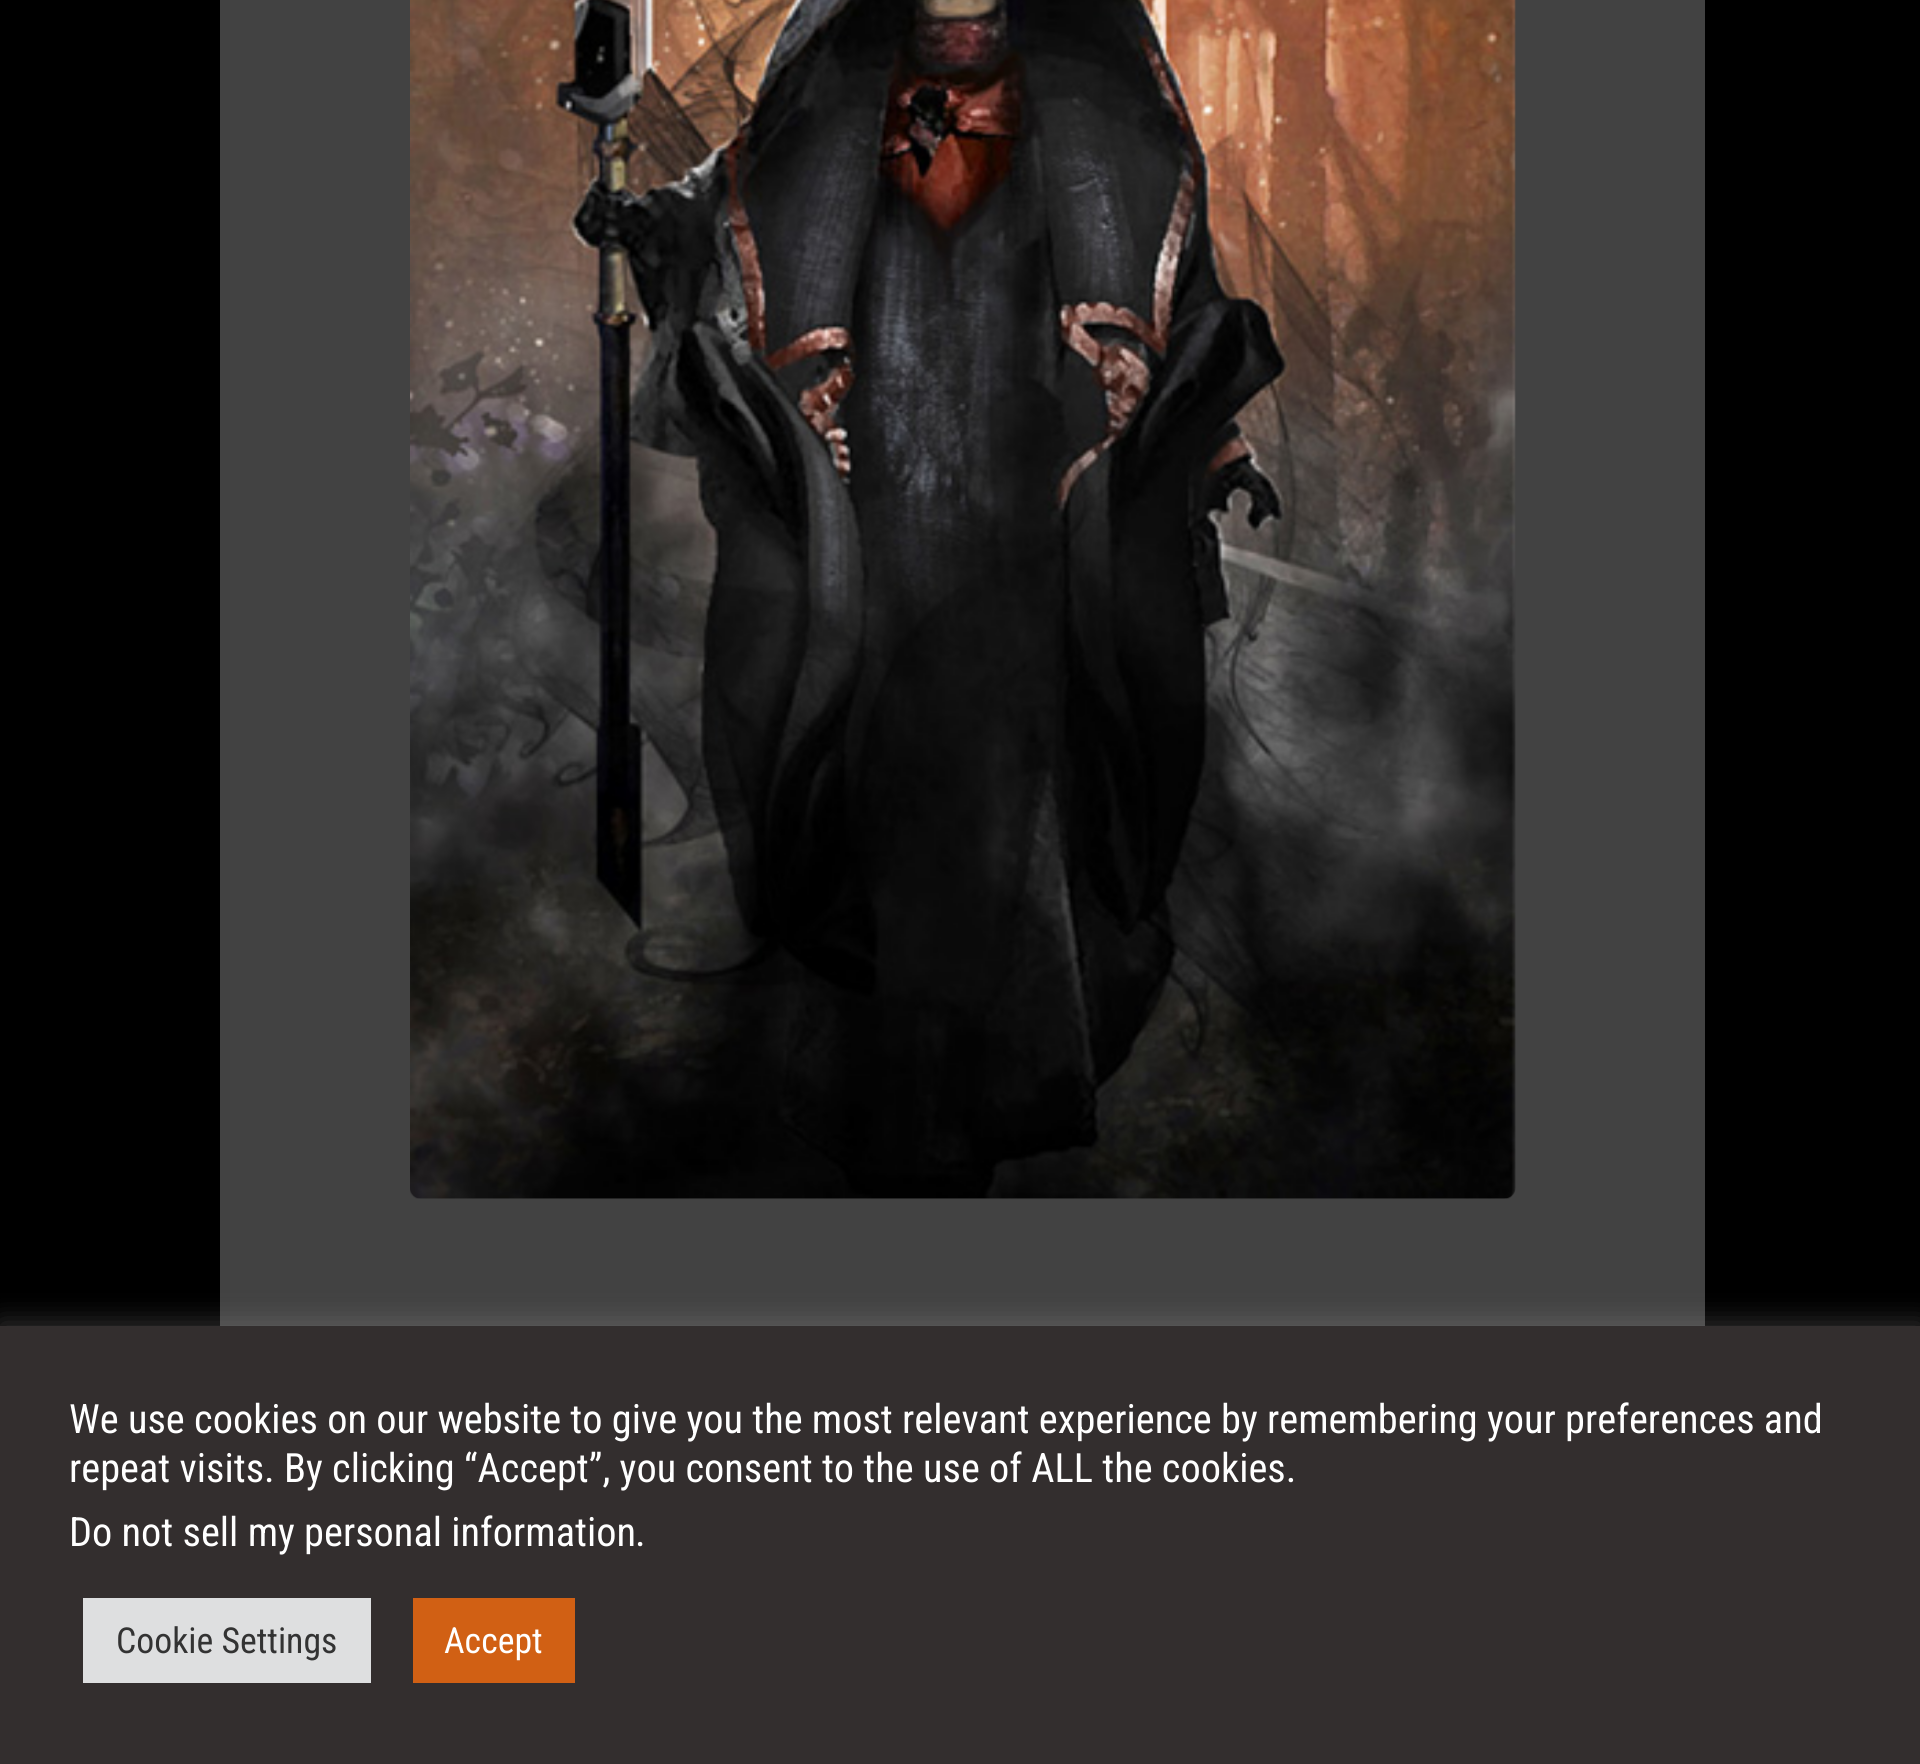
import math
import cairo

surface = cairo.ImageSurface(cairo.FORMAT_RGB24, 1920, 1764)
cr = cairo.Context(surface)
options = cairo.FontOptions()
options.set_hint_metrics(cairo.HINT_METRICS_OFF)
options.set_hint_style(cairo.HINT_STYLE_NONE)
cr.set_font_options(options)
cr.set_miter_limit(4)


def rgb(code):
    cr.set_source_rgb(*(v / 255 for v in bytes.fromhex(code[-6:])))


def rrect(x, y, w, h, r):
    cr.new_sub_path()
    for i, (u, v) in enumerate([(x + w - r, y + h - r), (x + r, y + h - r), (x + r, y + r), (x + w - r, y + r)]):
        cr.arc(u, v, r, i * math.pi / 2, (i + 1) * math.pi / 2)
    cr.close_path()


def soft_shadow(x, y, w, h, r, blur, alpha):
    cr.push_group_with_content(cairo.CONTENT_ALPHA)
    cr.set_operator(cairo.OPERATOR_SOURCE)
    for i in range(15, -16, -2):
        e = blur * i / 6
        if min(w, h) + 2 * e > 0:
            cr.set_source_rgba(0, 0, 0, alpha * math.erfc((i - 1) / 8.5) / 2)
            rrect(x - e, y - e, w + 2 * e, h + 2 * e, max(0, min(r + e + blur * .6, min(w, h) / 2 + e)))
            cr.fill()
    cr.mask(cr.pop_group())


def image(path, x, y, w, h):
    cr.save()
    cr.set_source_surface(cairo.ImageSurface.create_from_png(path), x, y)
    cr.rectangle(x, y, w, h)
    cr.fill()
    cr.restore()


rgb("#000000")
cr.paint()
rgb("#424242")
cr.rectangle(220, 0, 1485, 1326)
cr.fill()
image("img/1.png", 410, 0, 1106, 1199)
rgb("#acabab")
soft_shadow(0, 1323, 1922, 440, 0, 14, 0.3)
for x, y, w, h, color in [
    (0, 1326, 1920, 438, "#332e2e"),
    (83, 1598, 288, 85, "#dedfe0"),
    (413, 1598, 162, 85, "#d16014"),
]:
    rgb(color)
    cr.rectangle(x, y, w, h)
    cr.fill()
cr.select_font_face("Roboto Condensed")
cr.set_font_size(40.35)
rgb("#ffffff")
for x, y, s in [
    (69, 1433, "We use cookies on our website to give you the most relevant experience by remembering your preferences and"),
    (69, 1482, "repeat visits. By clicking “Accept”, you consent to the use of ALL the cookies."),
    (69, 1546, "Do not sell my personal information"),
    (635, 1546, "."),
]:
    cr.move_to(x, y)
    cr.show_text(s)
cr.set_font_size(35.75)
rgb("#333333")
cr.move_to(116, 1653)
cr.show_text("Cookie Settings")
rgb("#ffffff")
cr.move_to(444, 1653)
cr.show_text("Accept")
surface.write_to_png("page.png")
